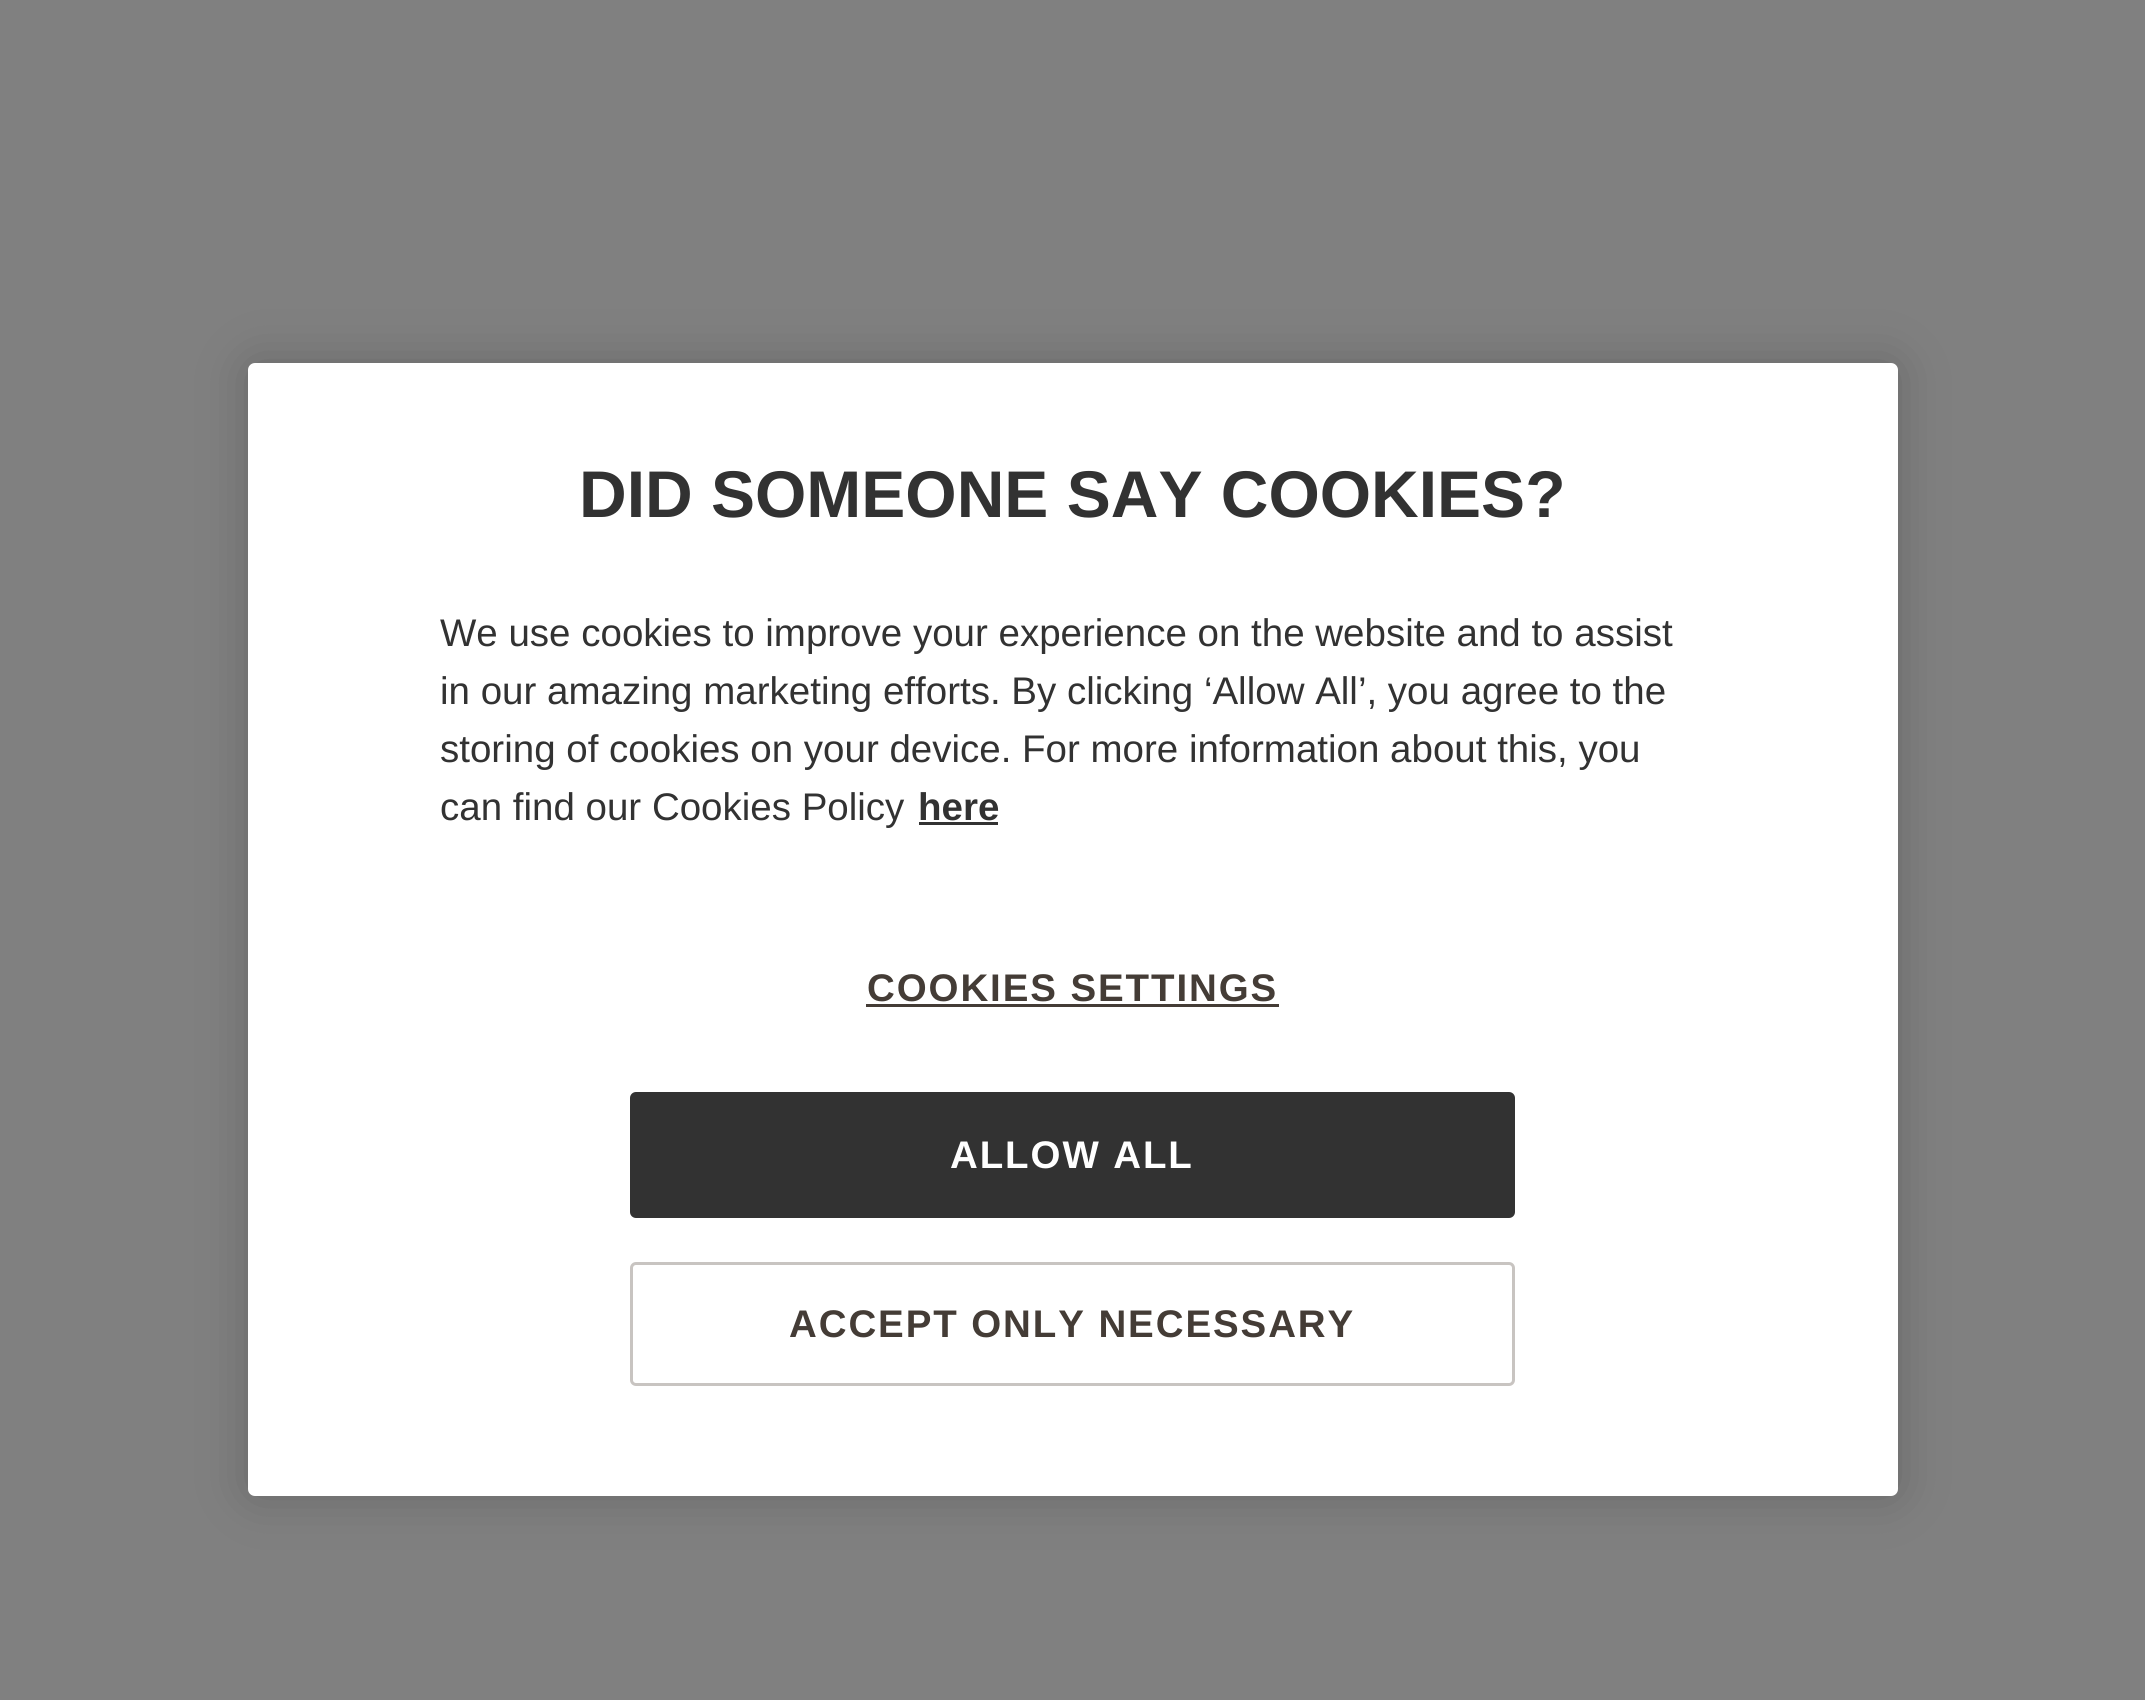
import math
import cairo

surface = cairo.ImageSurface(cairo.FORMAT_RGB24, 2145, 1700)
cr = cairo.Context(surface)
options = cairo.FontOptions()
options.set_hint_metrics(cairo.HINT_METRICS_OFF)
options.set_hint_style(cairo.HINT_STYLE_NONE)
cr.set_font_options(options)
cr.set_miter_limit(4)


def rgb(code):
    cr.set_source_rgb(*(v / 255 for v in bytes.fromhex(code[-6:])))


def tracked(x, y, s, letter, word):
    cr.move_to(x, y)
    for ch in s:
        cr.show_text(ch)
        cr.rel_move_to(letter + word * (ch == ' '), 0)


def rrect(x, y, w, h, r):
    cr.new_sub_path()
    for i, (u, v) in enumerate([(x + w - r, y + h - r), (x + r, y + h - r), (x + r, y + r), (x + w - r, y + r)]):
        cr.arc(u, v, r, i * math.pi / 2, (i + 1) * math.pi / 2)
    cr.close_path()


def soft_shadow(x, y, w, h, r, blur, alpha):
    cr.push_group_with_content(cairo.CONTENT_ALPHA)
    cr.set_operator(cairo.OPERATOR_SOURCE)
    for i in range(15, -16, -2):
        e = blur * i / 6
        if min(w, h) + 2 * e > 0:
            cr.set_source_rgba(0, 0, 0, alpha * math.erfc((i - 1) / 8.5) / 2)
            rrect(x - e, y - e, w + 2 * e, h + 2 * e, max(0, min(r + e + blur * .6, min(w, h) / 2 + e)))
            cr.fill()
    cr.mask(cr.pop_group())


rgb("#808080")
cr.paint()
rgb("#000000")
soft_shadow(248, 363, 1650, 1133, 7, 25, 0.2)
rgb("#ffffff")
rrect(248, 363, 1650, 1133, 7)
cr.fill()
rgb("#323232")
cr.rectangle(919, 822, 79, 3)
cr.fill()
rgb("#443c36")
cr.rectangle(866, 1004, 413, 3)
cr.fill()
rgb("#323232")
rrect(631.5, 1093.5, 882, 123, 4.5)
cr.fill_preserve()
cr.set_line_width(3)
cr.stroke()
rrect(631.5, 1263.5, 882, 121, 4.5)
rgb("#c8c4c1")
cr.stroke()
cr.select_font_face("Liberation Sans", cairo.FONT_SLANT_NORMAL, cairo.FONT_WEIGHT_BOLD)
cr.set_font_size(66)
rgb("#323232")
cr.move_to(579, 517)
cr.show_text("DID SOMEONE SAY COOKIES?")
cr.select_font_face("Liberation Sans")
cr.set_font_size(38.5)
for x, y, s in [
    (440, 646, "We use cookies to improve your experience on the website and to assist"),
    (440, 704, "in our amazing marketing efforts. By clicking ‘Allow All’, you agree to the"),
    (440, 762, "storing of cookies on your device. For more information about this, you"),
    (440, 820, "can find our Cookies Policy"),
]:
    cr.move_to(x, y)
    cr.show_text(s)
cr.select_font_face("Liberation Sans", cairo.FONT_SLANT_NORMAL, cairo.FONT_WEIGHT_BOLD)
cr.move_to(918, 820)
cr.show_text("here")
rgb("#443c36")
tracked(867, 1001, "COOKIES SETTINGS", 1.9, 0)
rgb("#ffffff")
tracked(950, 1168, "ALLOW ALL", 1.9, 0)
rgb("#443c36")
tracked(789, 1337, "ACCEPT ONLY NECESSARY", 1.9, 0)
surface.write_to_png("page.png")
